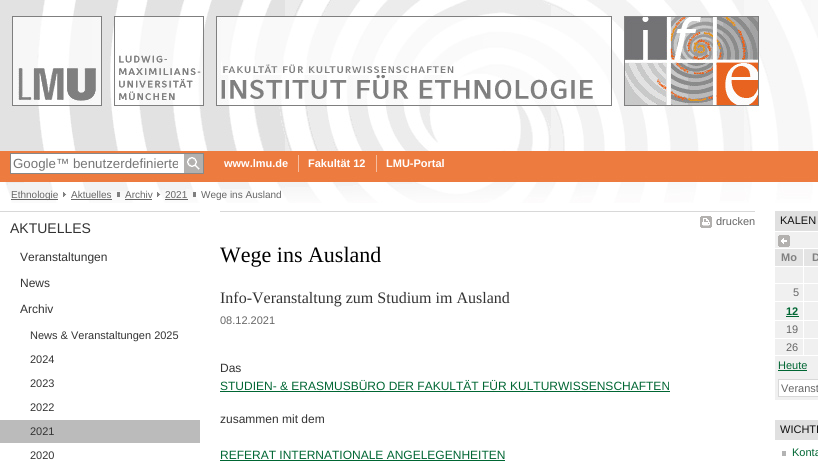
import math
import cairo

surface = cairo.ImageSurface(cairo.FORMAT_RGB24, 818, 470)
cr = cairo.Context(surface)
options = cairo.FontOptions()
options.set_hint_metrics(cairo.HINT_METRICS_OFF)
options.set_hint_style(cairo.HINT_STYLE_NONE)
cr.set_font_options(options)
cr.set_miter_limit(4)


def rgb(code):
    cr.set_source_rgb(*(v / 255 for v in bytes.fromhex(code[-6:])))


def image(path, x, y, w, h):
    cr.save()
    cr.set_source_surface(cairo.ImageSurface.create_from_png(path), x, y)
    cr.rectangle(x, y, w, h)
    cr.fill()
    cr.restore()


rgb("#ffffff")
cr.paint()
image("img/1.png", 0, 0, 818, 148)
image("img/2.png", 0, 148, 818, 31)
rgb("#ffffff")
cr.rectangle(11, 154, 173, 19)
cr.fill()
cr.rectangle(10.5, 153.5, 193, 20)
rgb("#888888")
cr.set_line_width(1)
cr.stroke()
image("img/3.png", 184, 154, 19, 19)
rgb("#f6bd9f")
cr.rectangle(298, 155, 1, 17)
cr.fill()
cr.rectangle(376, 155, 1, 17)
cr.fill()
image("img/4.png", 0, 179, 818, 24)
rgb("#666666")
cr.rectangle(11, 199, 47, 1)
cr.fill()
image("img/5.png", 63, 192, 4, 5)
for x, y, w, h, color in [
    (71, 199, 41, 1, "#666666"),
    (117, 192, 3, 5, "#7f7f7f"),
    (125, 199, 27, 1, "#666666"),
]:
    rgb(color)
    cr.rectangle(x, y, w, h)
    cr.fill()
image("img/6.png", 157, 192, 4, 5)
for x, y, w, h, color in [
    (165, 199, 23, 1, "#666666"),
    (193, 192, 3, 5, "#7f7f7f"),
    (0, 211, 200, 1, "#d8d8d8"),
    (0, 420, 200, 23, "#bbbbbb"),
    (220, 211, 535, 1, "#d8d8d8"),
]:
    rgb(color)
    cr.rectangle(x, y, w, h)
    cr.fill()
image("img/7.png", 700, 216, 12, 12)
for x, y, w, h, color in [
    (220, 391, 450, 1, "#006633"),
    (220, 460, 285, 1, "#006633"),
    (775, 211, 43, 20, "#e0e0e0"),
    (775, 232, 43, 16, "#f0f0f0"),
]:
    rgb(color)
    cr.rectangle(x, y, w, h)
    cr.fill()
image("img/8.png", 778, 235, 12, 12)
for x, y, w, h, color in [
    (775, 249, 28, 17, "#e4e4e4"),
    (804, 249, 14, 17, "#e4e4e4"),
    (775, 267, 28, 16, "#f0f0f0"),
    (804, 267, 14, 16, "#f0f0f0"),
    (775, 284, 28, 17, "#f0f0f0"),
    (804, 284, 14, 17, "#f0f0f0"),
    (775, 302, 28, 18, "#f0f0f0"),
    (786, 316, 13, 1, "#006633"),
    (804, 302, 14, 18, "#f0f0f0"),
    (775, 321, 28, 17, "#f0f0f0"),
    (804, 321, 14, 17, "#f0f0f0"),
    (775, 339, 28, 16, "#f0f0f0"),
    (804, 339, 14, 16, "#f0f0f0"),
    (775, 356, 43, 44, "#f0f0f0"),
    (778, 370, 29, 1, "#006633"),
]:
    rgb(color)
    cr.rectangle(x, y, w, h)
    cr.fill()
rgb("#ffffff")
cr.rectangle(778.5, 379.5, 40, 17)
cr.fill_preserve()
rgb("#d8d8d8")
cr.stroke()
rgb("#e0e0e0")
cr.rectangle(775, 420, 43, 20)
cr.fill()
rgb("#b3b3b3")
cr.rectangle(782, 451, 4, 5)
cr.fill()
cr.save()
cr.rectangle(13, 156, 165, 15)
cr.clip()
cr.select_font_face("Liberation Sans")
cr.set_font_size(13.3)
rgb("#757575")
cr.move_to(13, 168)
cr.show_text("Google™ benutzerdefinierte")
cr.restore()
cr.select_font_face("Liberation Sans", cairo.FONT_SLANT_NORMAL, cairo.FONT_WEIGHT_BOLD)
cr.set_font_size(11)
rgb("#ffffff")
for x, y, s in [
    (224, 167, "www.lmu.de"),
    (308, 167, "Fakultät 12"),
    (386, 167, "LMU-Portal"),
]:
    cr.move_to(x, y)
    cr.show_text(s)
cr.select_font_face("Liberation Sans")
cr.set_font_size(10)
rgb("#666666")
for x, y, s in [
    (11, 198, "Ethnologie"),
    (71, 198, "Aktuelles"),
    (125, 198, "Archiv"),
    (165, 198, "2021"),
    (201, 198, "Wege ins Ausland"),
]:
    cr.move_to(x, y)
    cr.show_text(s)
cr.set_font_size(14)
rgb("#333333")
cr.move_to(10, 233)
cr.show_text("AKTUELLES")
cr.set_font_size(12)
for x, y, s in [
    (20, 261, "Veranstaltungen"),
    (20, 287, "News"),
    (20, 313, "Archiv"),
]:
    cr.move_to(x, y)
    cr.show_text(s)
cr.set_font_size(11)
for x, y, s in [
    (30, 339, "News & Veranstaltungen 2025"),
    (30, 363, "2024"),
    (30, 387, "2023"),
    (30, 411, "2022"),
    (30, 435, "2021"),
    (30, 459, "2020"),
]:
    cr.move_to(x, y)
    cr.show_text(s)
rgb("#666666")
cr.move_to(716, 225)
cr.show_text("drucken")
cr.select_font_face("Liberation Serif")
cr.set_font_size(22)
rgb("#000000")
cr.move_to(220, 262)
cr.show_text("Wege ins Ausland")
cr.set_font_size(16)
rgb("#333333")
cr.move_to(220, 303)
cr.show_text("Info-Veranstaltung zum Studium im Ausland")
cr.select_font_face("Liberation Sans")
cr.set_font_size(11)
rgb("#666666")
cr.move_to(220, 324)
cr.show_text("08.12.2021")
cr.set_font_size(12)
rgb("#333333")
cr.move_to(220, 372)
cr.show_text("Das")
rgb("#006633")
cr.move_to(220, 390)
cr.show_text("STUDIEN- & ERASMUSBÜRO DER FAKULTÄT FÜR KULTURWISSENSCHAFTEN")
rgb("#333333")
cr.move_to(220, 423)
cr.show_text("zusammen mit dem")
rgb("#006633")
cr.move_to(220, 459)
cr.show_text("REFERAT INTERNATIONALE ANGELEGENHEITEN")
cr.set_font_size(11)
rgb("#111111")
cr.move_to(780, 224)
cr.show_text("KALEN")
cr.select_font_face("Liberation Sans", cairo.FONT_SLANT_NORMAL, cairo.FONT_WEIGHT_BOLD)
rgb("#808080")
cr.move_to(781, 261)
cr.show_text("Mo")
cr.move_to(812, 261)
cr.show_text("D")
cr.select_font_face("Liberation Sans")
rgb("#666666")
cr.move_to(793, 296)
cr.show_text("5")
cr.select_font_face("Liberation Sans", cairo.FONT_SLANT_NORMAL, cairo.FONT_WEIGHT_BOLD)
rgb("#006633")
cr.move_to(786, 315)
cr.show_text("12")
cr.select_font_face("Liberation Sans")
rgb("#666666")
cr.move_to(786, 333)
cr.show_text("19")
cr.move_to(786, 351)
cr.show_text("26")
rgb("#006633")
cr.move_to(778, 369)
cr.show_text("Heute")
rgb("#666666")
cr.move_to(781, 392)
cr.show_text("Veranst")
rgb("#111111")
cr.move_to(780, 433)
cr.show_text("WICHTI")
rgb("#006633")
cr.move_to(792, 456)
cr.show_text("Konta")
surface.write_to_png("page.png")
